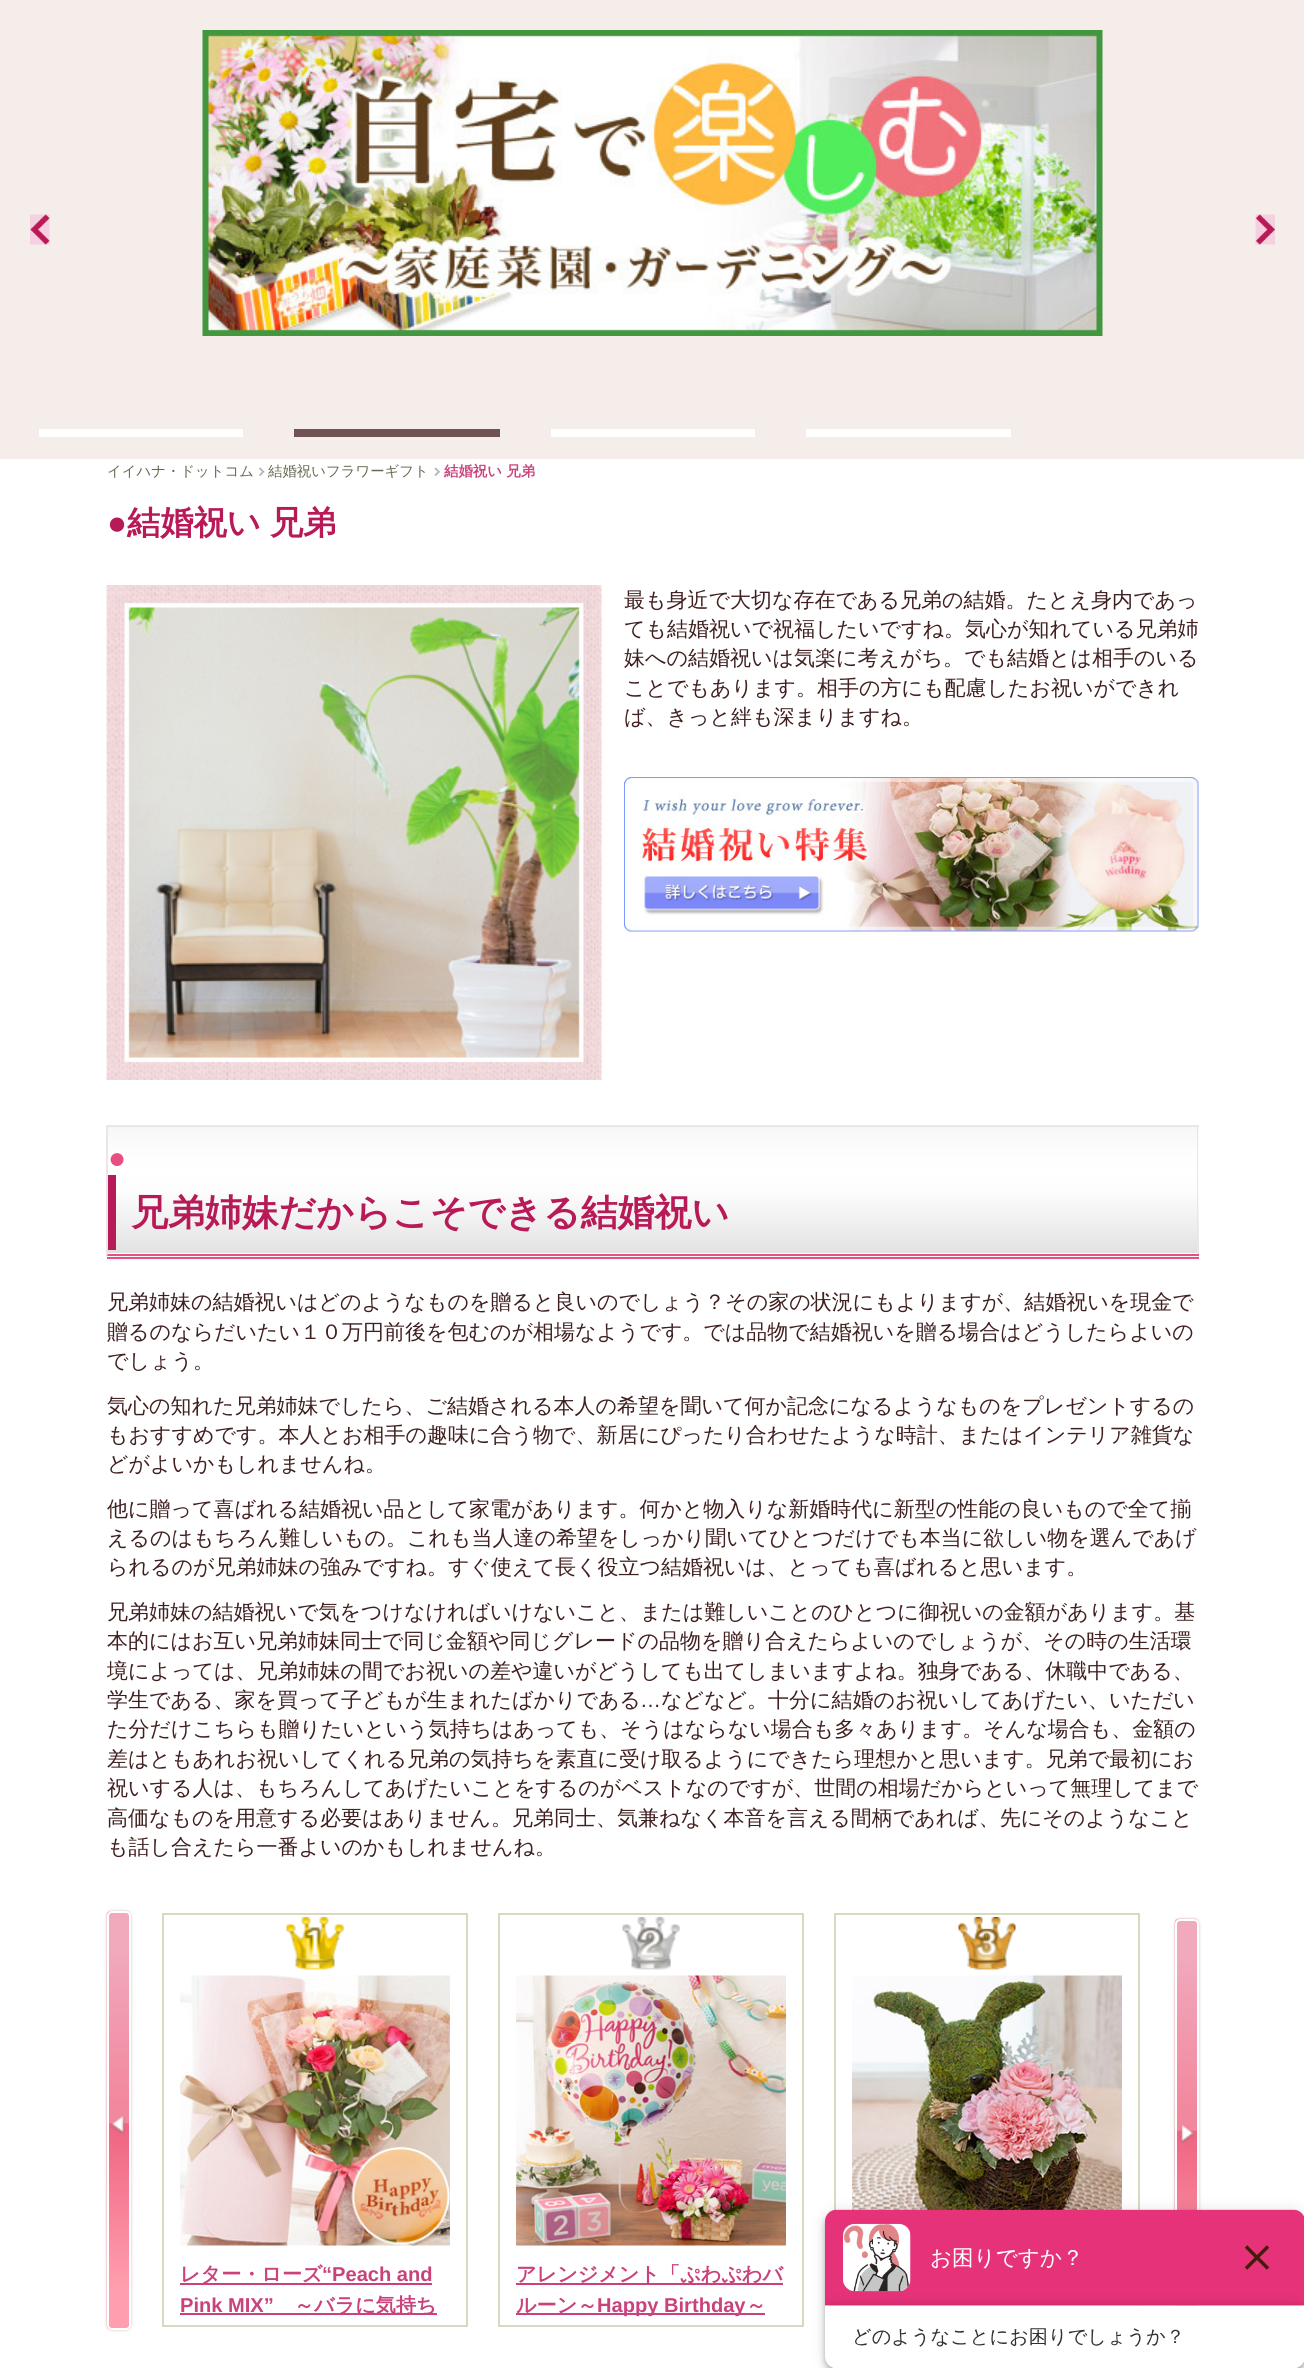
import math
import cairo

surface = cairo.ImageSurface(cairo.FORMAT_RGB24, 1304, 2368)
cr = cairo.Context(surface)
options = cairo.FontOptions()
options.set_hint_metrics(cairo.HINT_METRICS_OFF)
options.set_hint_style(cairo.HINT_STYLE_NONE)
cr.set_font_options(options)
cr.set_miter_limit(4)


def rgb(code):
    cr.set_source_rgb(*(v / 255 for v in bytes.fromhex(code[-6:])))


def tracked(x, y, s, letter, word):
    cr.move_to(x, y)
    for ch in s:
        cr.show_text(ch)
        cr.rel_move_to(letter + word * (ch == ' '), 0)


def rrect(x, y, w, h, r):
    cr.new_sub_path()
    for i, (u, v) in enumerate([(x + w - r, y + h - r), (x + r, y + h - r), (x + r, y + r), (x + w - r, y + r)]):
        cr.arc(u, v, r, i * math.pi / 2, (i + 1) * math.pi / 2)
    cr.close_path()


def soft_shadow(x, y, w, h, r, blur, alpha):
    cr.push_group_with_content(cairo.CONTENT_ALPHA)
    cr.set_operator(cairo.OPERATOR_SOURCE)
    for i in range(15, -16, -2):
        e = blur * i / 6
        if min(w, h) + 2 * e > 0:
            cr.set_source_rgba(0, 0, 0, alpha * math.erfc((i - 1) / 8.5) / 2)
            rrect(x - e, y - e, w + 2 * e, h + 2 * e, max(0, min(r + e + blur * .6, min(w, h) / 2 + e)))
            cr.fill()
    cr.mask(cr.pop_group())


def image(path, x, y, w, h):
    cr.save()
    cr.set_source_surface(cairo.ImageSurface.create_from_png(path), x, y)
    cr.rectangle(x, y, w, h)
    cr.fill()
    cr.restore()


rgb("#ffffff")
cr.paint()
rgb("#f4edea")
cr.rectangle(0, 0, 1304, 459)
cr.fill()
image("img/1.png", 30, 214, 20, 31)
image("img/2.png", 202, 30, 901, 306)
image("img/3.png", 1255, 214, 20, 31)
for x, y, w, h, color in [
    (39, 429, 204, 8, "#ffffff"),
    (294, 429, 206, 8, "#705252"),
    (551, 429, 204, 8, "#ffffff"),
    (806, 429, 205, 8, "#ffffff"),
]:
    rgb(color)
    cr.rectangle(x, y, w, h)
    cr.fill()
image("img/4.png", 259, 467, 6, 9)
image("img/5.png", 434, 467, 6, 9)
image("img/6.png", 106, 585, 496, 495)
image("img/7.png", 624, 777, 575, 155)
gradient = cairo.LinearGradient(653, 1254, 653, 1127)
gradient.add_color_stop_rgba(0, 0.875, 0.882, 0.878, 1)
gradient.add_color_stop_rgba(0.2, 0.929, 0.929, 0.929, 1)
gradient.add_color_stop_rgba(0.35, 0.961, 0.961, 0.961, 1)
gradient.add_color_stop_rgba(0.5, 0.992, 0.992, 0.992, 1)
gradient.add_color_stop_rgba(0.65, 1, 1, 1, 1)
gradient.add_color_stop_rgba(0.8, 0.992, 0.992, 0.992, 1)
gradient.add_color_stop_rgba(1, 0.969, 0.969, 0.969, 1)
cr.set_source(gradient)
cr.rectangle(108, 1127, 1091, 127)
cr.fill()
gradient = cairo.LinearGradient(653, 1382, 653, 1254)
gradient.add_color_stop_rgba(0, 0.875, 0.882, 0.878, 1)
gradient.add_color_stop_rgba(0.2, 0.929, 0.929, 0.929, 1)
gradient.add_color_stop_rgba(0.35, 0.961, 0.961, 0.961, 1)
gradient.add_color_stop_rgba(0.5, 0.992, 0.992, 0.992, 1)
gradient.add_color_stop_rgba(0.65, 1, 1, 1, 1)
gradient.add_color_stop_rgba(0.8, 0.992, 0.992, 0.992, 1)
gradient.add_color_stop_rgba(1, 0.969, 0.969, 0.969, 1)
cr.set_source(gradient)
cr.rectangle(107, 1256, 1092, 1)
cr.fill()
rgb("#ffffff")
cr.rectangle(108, 1253, 1089, 1)
cr.fill()
rgb("#ebe5e7")
cr.rectangle(107, 1125, 1092, 2)
cr.fill()
cr.new_path()
cr.move_to(1198, 1125)
cr.line_to(1198, 1258)
cr.line_to(1197, 1254)
cr.line_to(1197, 1126)
cr.close_path()
cr.fill()
rgb("#e74f83")
cr.rectangle(107, 1254, 1092, 2)
cr.fill()
cr.rectangle(107, 1257, 1092, 2)
cr.fill()
rgb("#ebe5e7")
cr.new_path()
cr.move_to(106, 1258)
cr.line_to(106, 1125)
cr.line_to(108, 1126)
cr.line_to(108, 1254)
cr.close_path()
cr.fill()
rgb("#b61a59")
cr.rectangle(108, 1175, 8, 75)
cr.fill()
rgb("#d5c3c5")
soft_shadow(107, 1911, 24, 419, 5, 1.5, 1)
image("img/8.png", 106, 1911, 25, 419)
rrect(108, 1912, 22, 417, 4)
rgb("#ffffff")
cr.stroke()
image("img/9.png", 111, 2116, 15, 19)
cr.rectangle(163, 1914, 304, 412)
rgb("#d9d9c2")
cr.stroke()
image("img/10.png", 286, 1917, 58, 53)
image("img/11.png", 180, 1975, 270, 271)
rgb("#ca417d")
cr.rectangle(180, 2283, 252, 2)
cr.fill()
cr.rectangle(180, 2313, 257, 2)
cr.fill()
cr.rectangle(499, 1914, 304, 412)
rgb("#d9d9c2")
cr.stroke()
image("img/12.png", 622, 1917, 58, 53)
image("img/13.png", 516, 1975, 270, 271)
rgb("#ca417d")
cr.rectangle(516, 2283, 267, 2)
cr.fill()
cr.rectangle(516, 2313, 249, 2)
cr.fill()
cr.rectangle(835, 1914, 304, 412)
rgb("#d9d9c2")
cr.stroke()
image("img/14.png", 958, 1917, 58, 53)
image("img/15.png", 852, 1975, 270, 235)
rgb("#d5c3c5")
soft_shadow(1175, 1919, 24, 418, 5, 1.5, 1)
image("img/16.png", 1174, 1918, 25, 388)
rrect(1176, 1920, 22, 416, 4)
rgb("#ffffff")
cr.stroke()
image("img/17.png", 1179, 2125, 15, 19)
rgb("#000000")
soft_shadow(827, 2214, 477, 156, 11, 3, 0.3)
soft_shadow(825, 2211, 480, 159, 12, 7.5, 0.12)
soft_shadow(825, 2216, 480, 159, 12, 4, 0.14)
image("img/18.png", 825, 2209, 479, 159)
cr.select_font_face("WenQuanYi Zen Hei Medium")
cr.set_font_size(14.4)
rgb("#696951")
cr.move_to(107, 476)
cr.show_text("イイハナ・ドットコム")
cr.move_to(268, 476)
cr.show_text("結婚祝いフラワーギフト")
cr.select_font_face("WenQuanYi Zen Hei", cairo.FONT_SLANT_NORMAL, cairo.FONT_WEIGHT_BOLD)
rgb("#c9427c")
cr.move_to(444, 476)
cr.show_text("結婚祝い 兄弟")
cr.select_font_face("Liberation Sans", cairo.FONT_SLANT_NORMAL, cairo.FONT_WEIGHT_BOLD)
cr.set_font_size(33.25)
rgb("#b81a57")
cr.move_to(107, 534)
cr.show_text("●")
cr.select_font_face("WenQuanYi Zen Hei", cairo.FONT_SLANT_NORMAL, cairo.FONT_WEIGHT_BOLD)
tracked(127, 534, "結婚祝い 兄弟", 0, -1)
cr.select_font_face("WenQuanYi Zen Hei Medium")
cr.set_font_size(21)
rgb("#401f1f")
for x, y, s in [
    (624, 607, "最も身近で大切な存在である兄弟の結婚。たとえ身内であっ"),
    (624, 636, "ても結婚祝いで祝福したいですね。気心が知れている兄弟姉"),
    (624, 665, "妹への結婚祝いは気楽に考えがち。でも結婚とは相手のいる"),
    (624, 695, "ことでもあります。相手の方にも配慮したお祝いができれ"),
    (624, 724, "ば、きっと絆も深まりますね。"),
]:
    cr.move_to(x, y)
    cr.show_text(s)
cr.select_font_face("Liberation Sans", cairo.FONT_SLANT_NORMAL, cairo.FONT_WEIGHT_BOLD)
cr.set_font_size(30)
rgb("#e74f83")
cr.move_to(108, 1168)
cr.show_text("●")
cr.select_font_face("WenQuanYi Zen Hei", cairo.FONT_SLANT_NORMAL, cairo.FONT_WEIGHT_BOLD)
cr.set_font_size(36.9)
rgb("#b81a57")
cr.move_to(131, 1225)
cr.show_text("兄弟姉妹だからこそできる結婚祝い")
cr.select_font_face("WenQuanYi Zen Hei Medium")
cr.set_font_size(21)
rgb("#401f1f")
for x, y, s in [
    (107, 1309, "兄弟姉妹の結婚祝いはどのようなものを贈ると良いのでしょう？その家の状況にもよりますが、結婚祝いを現金で"),
    (107, 1339, "贈るのならだいたい１０万円前後を包むのが相場なようです。では品物で結婚祝いを贈る場合はどうしたらよいの"),
    (107, 1368, "でしょう。"),
    (107, 1413, "気心の知れた兄弟姉妹でしたら、ご結婚される本人の希望を聞いて何か記念になるようなものをプレゼントするの"),
    (107, 1442, "もおすすめです。本人とお相手の趣味に合う物で、新居にぴったり合わせたような時計、またはインテリア雑貨な"),
    (107, 1471, "どがよいかもしれませんね。"),
    (107, 1516, "他に贈って喜ばれる結婚祝い品として家電があります。何かと物入りな新婚時代に新型の性能の良いもので全て揃"),
    (107, 1545, "えるのはもちろん難しいもの。これも当人達の希望をしっかり聞いてひとつだけでも本当に欲しい物を選んであげ"),
    (107, 1574, "られるのが兄弟姉妹の強みですね。すぐ使えて長く役立つ結婚祝いは、とっても喜ばれると思います。"),
    (107, 1619, "兄弟姉妹の結婚祝いで気をつけなければいけないこと、または難しいことのひとつに御祝いの金額があります。基"),
    (107, 1648, "本的にはお互い兄弟姉妹同士で同じ金額や同じグレードの品物を贈り合えたらよいのでしょうが、その時の生活環"),
    (107, 1678, "境によっては、兄弟姉妹の間でお祝いの差や違いがどうしても出てしまいますよね。独身である、休職中である、"),
    (107, 1707, "学生である、家を買って子どもが生まれたばかりである"),
]:
    cr.move_to(x, y)
    cr.show_text(s)
cr.select_font_face("Liberation Sans")
cr.move_to(640, 1707)
cr.show_text("…")
cr.select_font_face("WenQuanYi Zen Hei Medium")
for x, y, s in [
    (661, 1707, "などなど。十分に結婚のお祝いしてあげたい、いただい"),
    (107, 1736, "た分だけこちらも贈りたいという気持ちはあっても、そうはならない場合も多々あります。そんな場合も、金額の"),
    (107, 1766, "差はともあれお祝いしてくれる兄弟の気持ちを素直に受け取るようにできたら理想かと思います。兄弟で最初にお"),
    (107, 1795, "祝いする人は、もちろんしてあげたいことをするのがベストなのですが、世間の相場だからといって無理してまで"),
    (107, 1825, "高価なものを用意する必要はありません。兄弟同士、気兼ねなく本音を言える間柄であれば、先にそのようなこと"),
    (107, 1854, "も話し合えたら一番よいのかもしれませんね。"),
]:
    cr.move_to(x, y)
    cr.show_text(s)
cr.select_font_face("WenQuanYi Zen Hei", cairo.FONT_SLANT_NORMAL, cairo.FONT_WEIGHT_BOLD)
cr.set_font_size(20.1)
rgb("#c9427c")
cr.move_to(180, 2281)
cr.show_text("レター・ローズ")
cr.select_font_face("Liberation Sans", cairo.FONT_SLANT_NORMAL, cairo.FONT_WEIGHT_BOLD)
cr.move_to(322, 2281)
cr.show_text("“Peach and")
cr.move_to(180, 2312)
cr.show_text("Pink MIX”")
cr.select_font_face("WenQuanYi Zen Hei", cairo.FONT_SLANT_NORMAL, cairo.FONT_WEIGHT_BOLD)
for x, y, s in [
    (294, 2312, "～バラに気持ち"),
    (516, 2281, "アレンジメント「ぷわぷわバ"),
    (516, 2312, "ルーン～"),
]:
    cr.move_to(x, y)
    cr.show_text(s)
cr.select_font_face("Liberation Sans", cairo.FONT_SLANT_NORMAL, cairo.FONT_WEIGHT_BOLD)
cr.move_to(597, 2312)
cr.show_text("Happy Birthday")
cr.select_font_face("WenQuanYi Zen Hei", cairo.FONT_SLANT_NORMAL, cairo.FONT_WEIGHT_BOLD)
cr.move_to(746, 2312)
cr.show_text("～")
surface.write_to_png("page.png")
